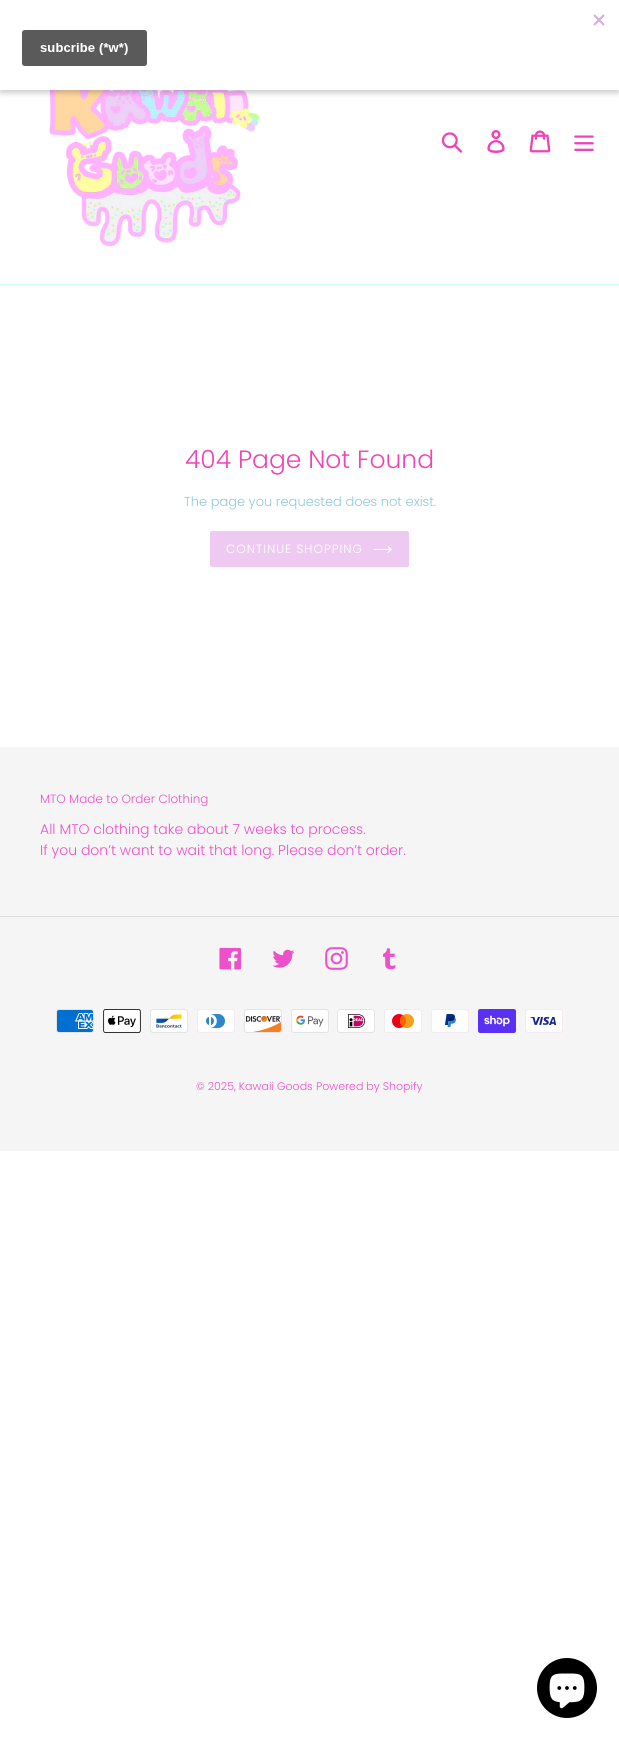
import math
import cairo

surface = cairo.ImageSurface(cairo.FORMAT_RGB24, 619, 1739)
cr = cairo.Context(surface)
options = cairo.FontOptions()
options.set_hint_metrics(cairo.HINT_METRICS_OFF)
options.set_hint_style(cairo.HINT_STYLE_NONE)
cr.set_font_options(options)
cr.set_miter_limit(4)


def rgb(code):
    cr.set_source_rgb(*(v / 255 for v in bytes.fromhex(code[-6:])))


def tracked(x, y, s, letter, word):
    cr.move_to(x, y)
    for ch in s:
        cr.show_text(ch)
        cr.rel_move_to(letter + word * (ch == ' '), 0)


def rrect(x, y, w, h, r):
    cr.new_sub_path()
    for i, (u, v) in enumerate([(x + w - r, y + h - r), (x + r, y + h - r), (x + r, y + r), (x + w - r, y + r)]):
        cr.arc(u, v, r, i * math.pi / 2, (i + 1) * math.pi / 2)
    cr.close_path()


def soft_shadow(x, y, w, h, r, blur, alpha):
    cr.push_group_with_content(cairo.CONTENT_ALPHA)
    cr.set_operator(cairo.OPERATOR_SOURCE)
    for i in range(15, -16, -2):
        e = blur * i / 6
        if min(w, h) + 2 * e > 0:
            cr.set_source_rgba(0, 0, 0, alpha * math.erfc((i - 1) / 8.5) / 2)
            rrect(x - e, y - e, w + 2 * e, h + 2 * e, max(0, min(r + e + blur * .6, min(w, h) / 2 + e)))
            cr.fill()
    cr.mask(cr.pop_group())


def image(path, x, y, w, h):
    cr.save()
    cr.set_source_surface(cairo.ImageSurface.create_from_png(path), x, y)
    cr.rectangle(x, y, w, h)
    cr.fill()
    cr.restore()


rgb("#ffffff")
cr.paint()
image("img/2.png", 49, 90, 211, 157)
rgb("#000000")
soft_shadow(0, 3, 619, 90, 0, 3, 0.2)
rgb("#ffffff")
cr.rectangle(0, 0, 619, 90)
cr.fill()
image("img/1.png", 22, 14, 583, 52)
rgb("#d4f8f6")
cr.rectangle(0, 284, 619, 1)
cr.fill()
image("img/3.png", 441, 132, 22, 21)
image("img/4.png", 487, 130, 18, 23)
image("img/5.png", 529, 130, 22, 23)
image("img/6.png", 574, 135, 20, 16)
rgb("#eecaf2")
rrect(210, 531, 199, 36, 2)
cr.fill()
image("img/7.png", 373, 546, 20, 7)
rgb("#f5f5f5")
cr.rectangle(0, 747, 619, 404)
cr.fill()
rgb("#dcdcdc")
cr.rectangle(0, 916, 619, 1)
cr.fill()
image("img/8.png", 219, 947, 22, 23)
image("img/9.png", 272, 949, 23, 19)
image("img/10.png", 325, 947, 23, 23)
image("img/11.png", 383, 948, 13, 22)
image("img/12.png", 56, 1009, 38, 24)
image("img/13.png", 103, 1009, 38, 24)
image("img/14.png", 150, 1009, 38, 24)
image("img/15.png", 197, 1009, 38, 24)
image("img/16.png", 244, 1009, 38, 24)
image("img/17.png", 291, 1009, 38, 24)
image("img/18.png", 337, 1009, 38, 24)
image("img/19.png", 384, 1009, 38, 24)
image("img/20.png", 431, 1009, 38, 24)
image("img/21.png", 478, 1009, 38, 24)
image("img/22.png", 525, 1009, 38, 24)
rgb("#000000")
cr.arc(567, 1688, 30, 0, 2 * math.pi)
cr.fill()
image("img/23.png", 549, 1673, 36, 36)
cr.select_font_face("Poppins Light")
cr.set_font_size(25)
rgb("#f044b6")
cr.move_to(185, 468)
cr.show_text("404 Page Not Found")
cr.set_font_size(13)
rgb("#8fc8de")
cr.move_to(184, 506)
cr.show_text("The page you requested does not exist.")
cr.set_font_size(12)
rgb("#ffffff")
tracked(226, 553, "CONTINUE SHOPPING", 1, 0)
rgb("#ed50ca")
cr.move_to(40, 803)
cr.show_text("MTO Made to Order Clothing")
cr.set_font_size(14)
cr.move_to(40, 834)
cr.show_text("All MTO clothing take about 7 weeks to process.")
cr.move_to(40, 855)
cr.show_text("If you don’t want to wait that long. Please don’t order.")
cr.set_font_size(11)
cr.move_to(196, 1090)
cr.show_text("© 2025, Kawaii Goods")
cr.move_to(316, 1090)
cr.show_text("Powered by Shopify")
surface.write_to_png("page.png")
